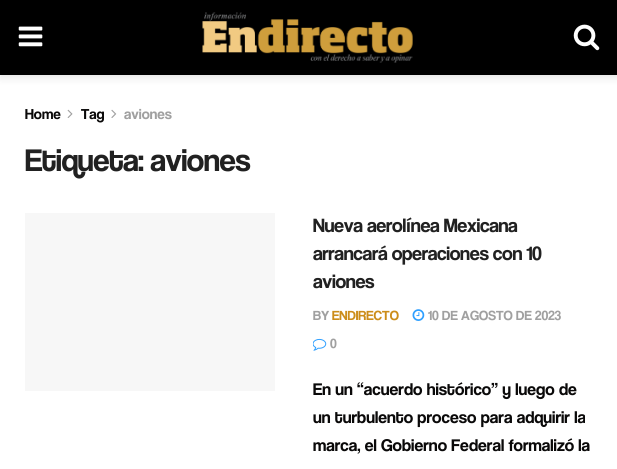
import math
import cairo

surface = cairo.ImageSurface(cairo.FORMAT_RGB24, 617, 469)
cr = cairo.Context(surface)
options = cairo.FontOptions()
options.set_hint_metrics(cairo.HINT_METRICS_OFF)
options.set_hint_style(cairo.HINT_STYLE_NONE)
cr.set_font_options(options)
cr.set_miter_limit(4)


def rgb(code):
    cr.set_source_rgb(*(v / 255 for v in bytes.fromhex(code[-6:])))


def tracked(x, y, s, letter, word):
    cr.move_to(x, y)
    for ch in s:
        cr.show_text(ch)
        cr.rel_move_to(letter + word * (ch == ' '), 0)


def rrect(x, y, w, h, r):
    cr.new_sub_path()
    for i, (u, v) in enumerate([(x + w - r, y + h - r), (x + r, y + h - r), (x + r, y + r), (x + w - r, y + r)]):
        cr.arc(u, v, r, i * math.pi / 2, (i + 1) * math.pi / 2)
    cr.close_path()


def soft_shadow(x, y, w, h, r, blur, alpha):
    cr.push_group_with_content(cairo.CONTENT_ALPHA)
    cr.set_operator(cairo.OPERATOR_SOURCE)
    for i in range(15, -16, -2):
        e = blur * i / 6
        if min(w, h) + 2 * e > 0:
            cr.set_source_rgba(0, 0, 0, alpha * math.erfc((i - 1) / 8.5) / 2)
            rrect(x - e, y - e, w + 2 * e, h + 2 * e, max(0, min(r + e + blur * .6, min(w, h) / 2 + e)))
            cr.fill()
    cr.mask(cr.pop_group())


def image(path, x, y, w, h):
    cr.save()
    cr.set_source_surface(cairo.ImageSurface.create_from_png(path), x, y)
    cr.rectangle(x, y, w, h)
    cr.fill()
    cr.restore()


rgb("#ffffff")
cr.paint()
rgb("#000000")
soft_shadow(0, 3, 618, 75, 0, 4, 0.1)
rgb("#000000")
cr.rectangle(0, 0, 617, 75)
cr.fill()
image("img/1.png", 18, 26, 25, 21)
image("img/2.png", 202, 12, 211, 51)
image("img/3.png", 573, 24, 27, 27)
image("img/4.png", 67, 109, 6, 9)
image("img/5.png", 111, 109, 6, 9)
rgb("#f7f7f7")
cr.rectangle(25, 213, 250, 178)
cr.fill()
image("img/6.png", 412, 309, 13, 12)
image("img/7.png", 313, 338, 14, 13)
cr.select_font_face("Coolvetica")
cr.set_font_size(15)
rgb("#0a0909")
cr.move_to(25, 119)
cr.show_text("Home")
cr.move_to(81, 119)
cr.show_text("Tag")
rgb("#a0a0a0")
cr.move_to(124, 119)
cr.show_text("aviones")
cr.set_font_size(32.5)
rgb("#212121")
tracked(25, 171, "Etiqueta: aviones", -0.6, 0)
cr.set_font_size(20)
tracked(313, 232, "Nueva aerolínea Mexicana", -0.4, 0)
cr.save()
cr.rectangle(313, 213, 280, 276)
cr.clip()
tracked(313, 260, "arrancará operaciones con 10", -0.4, 0)
tracked(313, 288, "aviones", -0.4, 0)
cr.set_font_size(13.75)
rgb("#a0a0a0")
cr.move_to(313, 320)
cr.show_text("BY")
cr.restore()
cr.set_font_size(13.75)
rgb("#cc8d1a")
cr.move_to(332, 320)
cr.show_text("ENDIRECTO")
rgb("#a0a0a0")
cr.move_to(428, 320)
cr.show_text("10 DE AGOSTO DE 2023")
cr.move_to(330, 348)
cr.show_text("0")
cr.save()
cr.rectangle(313, 213, 280, 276)
cr.clip()
cr.set_font_size(17.5)
rgb("#0a0909")
cr.move_to(313, 395)
cr.show_text("En un “acuerdo histórico” y luego de")
cr.restore()
cr.set_font_size(17.5)
rgb("#0a0909")
cr.move_to(313, 423)
cr.show_text("un turbulento proceso para adquirir la")
cr.move_to(313, 451)
cr.show_text("marca, el Gobierno Federal formalizó la")
surface.write_to_png("page.png")
